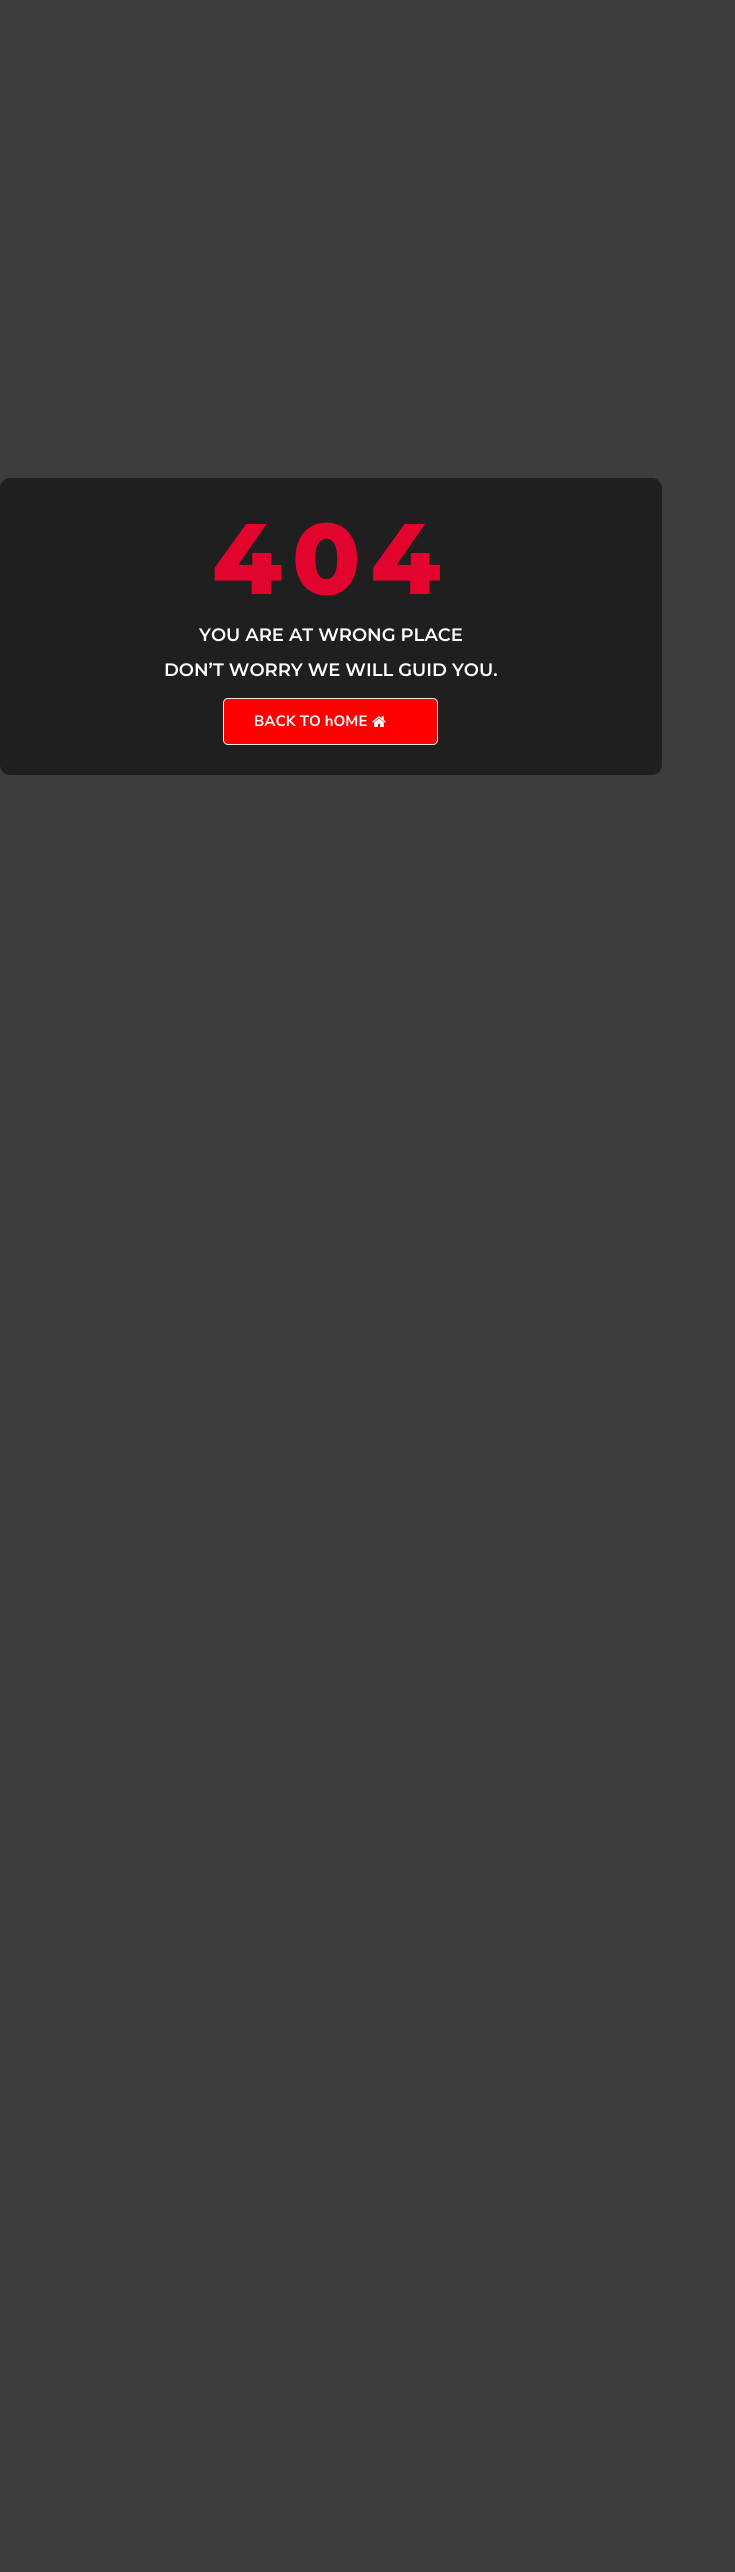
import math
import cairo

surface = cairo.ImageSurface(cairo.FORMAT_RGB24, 735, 2572)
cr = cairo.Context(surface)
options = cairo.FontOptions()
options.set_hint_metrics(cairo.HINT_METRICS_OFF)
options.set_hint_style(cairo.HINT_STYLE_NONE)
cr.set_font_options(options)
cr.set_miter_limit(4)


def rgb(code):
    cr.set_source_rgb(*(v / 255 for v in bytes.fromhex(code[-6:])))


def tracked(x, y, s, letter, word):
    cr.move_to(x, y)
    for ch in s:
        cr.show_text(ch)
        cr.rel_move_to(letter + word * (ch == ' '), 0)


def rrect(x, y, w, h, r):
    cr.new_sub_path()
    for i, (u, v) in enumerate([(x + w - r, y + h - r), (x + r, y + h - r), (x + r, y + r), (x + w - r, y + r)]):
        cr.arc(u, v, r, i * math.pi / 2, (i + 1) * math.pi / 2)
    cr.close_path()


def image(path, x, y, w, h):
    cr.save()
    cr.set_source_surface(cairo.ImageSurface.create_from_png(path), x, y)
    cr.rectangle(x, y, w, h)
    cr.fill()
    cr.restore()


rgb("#3d3d3d")
cr.paint()
rgb("#1f1f1f")
rrect(0, 478, 662, 297, 10)
cr.fill()
rgb("#ff0000")
rrect(223.5, 698.5, 214, 46, 4.5)
cr.fill_preserve()
rgb("#e5e5e5")
cr.set_line_width(1)
cr.stroke()
image("img/1.png", 372, 716, 14, 11)
cr.select_font_face("Montserrat Thin")
cr.set_font_size(100)
rgb("#e3042e")
tracked(212, 594, "404", 10, 0)
cr.select_font_face("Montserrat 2 Thin")
cr.set_font_size(18)
rgb("#ffffff")
cr.move_to(199, 641)
cr.show_text("YOU ARE AT WRONG PLACE")
cr.move_to(164, 676)
cr.show_text("DON’T WORRY WE WILL GUID YOU.")
cr.select_font_face("Nunito Sans ExtraLight")
cr.set_font_size(15)
cr.move_to(254, 726)
cr.show_text("BACK TO hOME")
surface.write_to_png("page.png")
